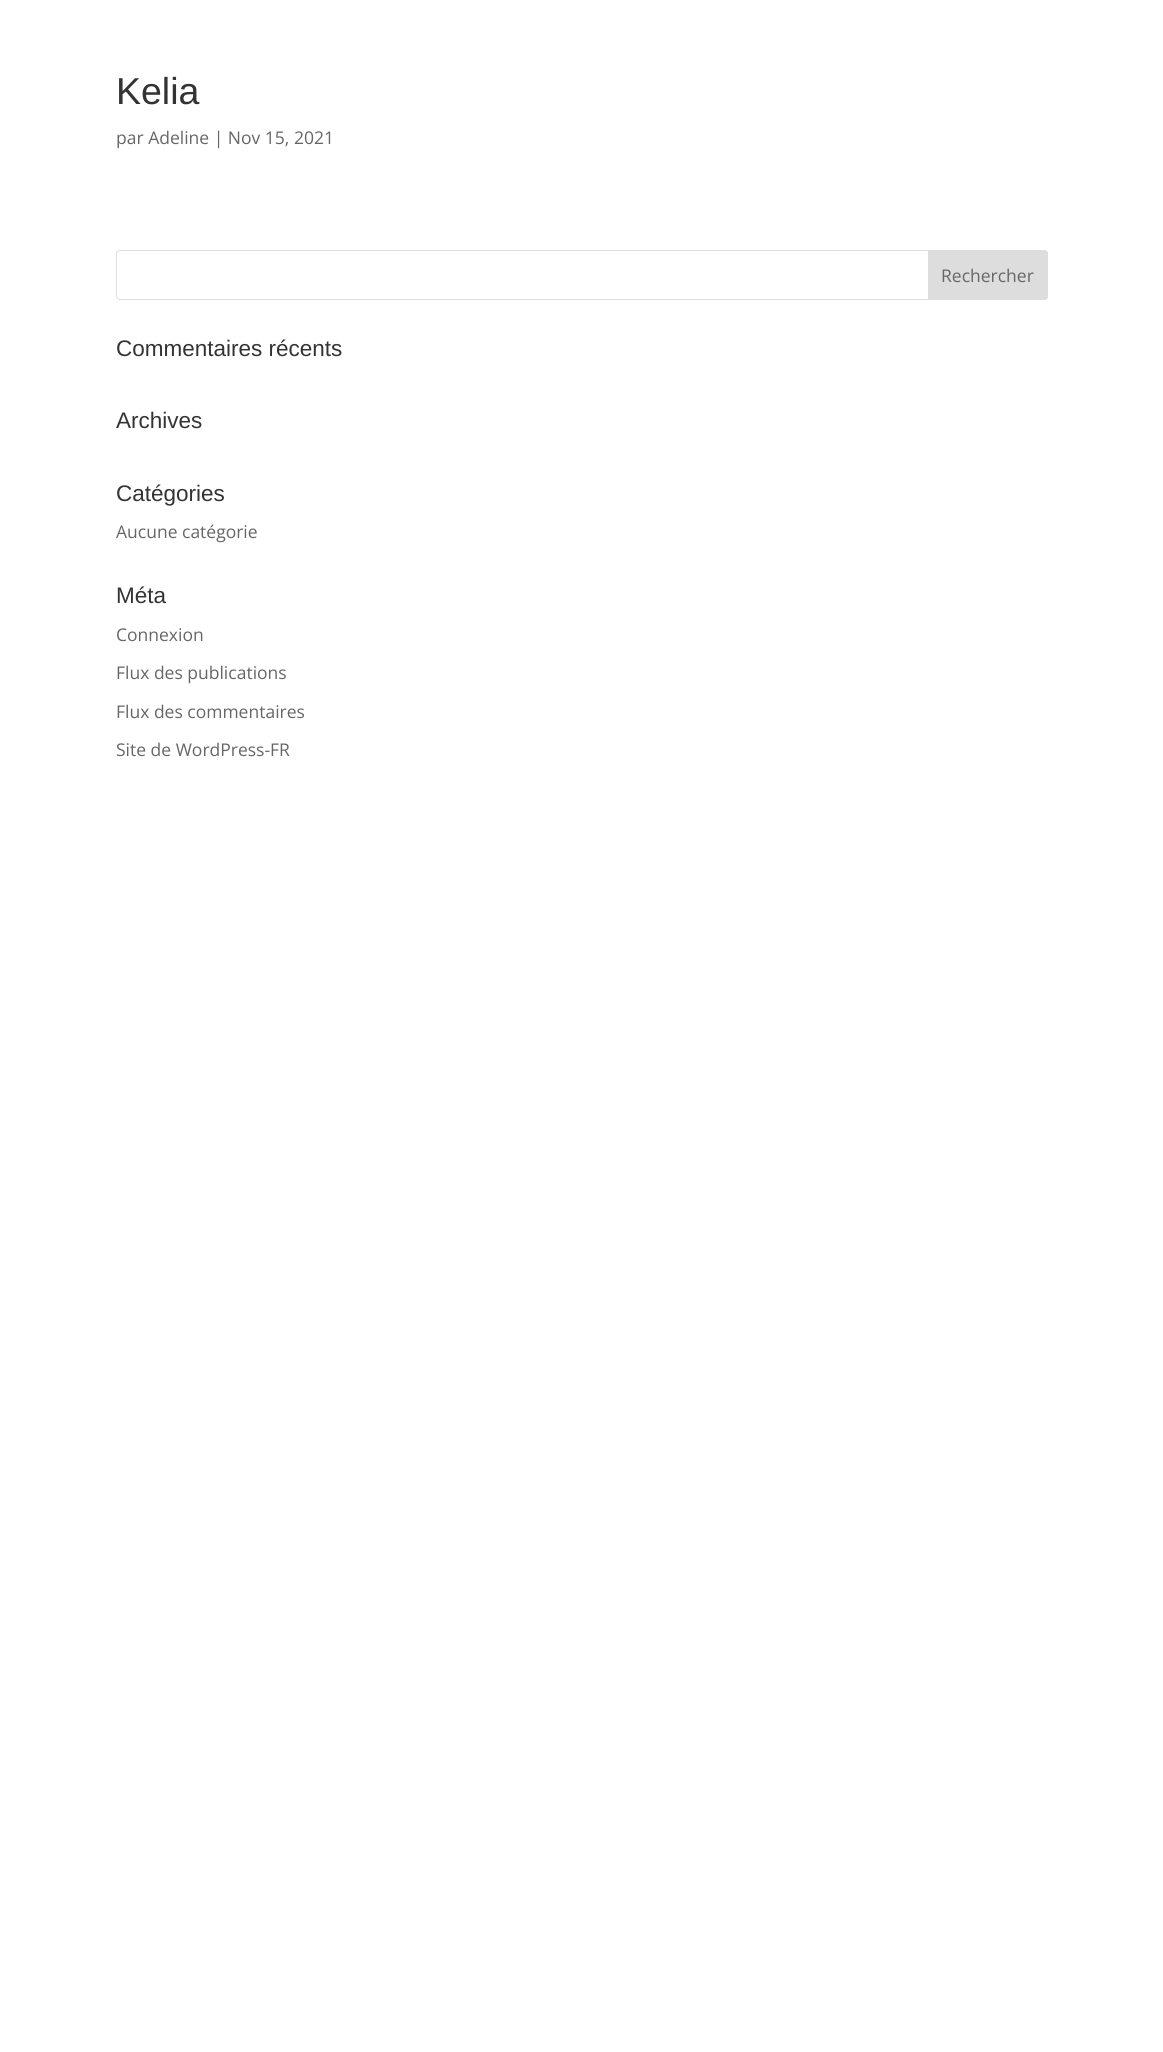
import math
import cairo

surface = cairo.ImageSurface(cairo.FORMAT_RGB24, 1163, 2052)
cr = cairo.Context(surface)
options = cairo.FontOptions()
options.set_hint_metrics(cairo.HINT_METRICS_OFF)
options.set_hint_style(cairo.HINT_STYLE_NONE)
cr.set_font_options(options)
cr.set_miter_limit(4)


def rgb(code):
    cr.set_source_rgb(*(v / 255 for v in bytes.fromhex(code[-6:])))


def rrect(x, y, w, h, r):
    cr.new_sub_path()
    for i, (u, v) in enumerate([(x + w - r, y + h - r), (x + r, y + h - r), (x + r, y + r), (x + w - r, y + r)]):
        cr.arc(u, v, r, i * math.pi / 2, (i + 1) * math.pi / 2)
    cr.close_path()


rgb("#ffffff")
cr.paint()
rrect(116.5, 250.5, 931, 49, 3.5)
rgb("#dddddd")
cr.set_line_width(1)
cr.stroke()
cr.new_path()
cr.move_to(928.5, 250.5)
cr.line_to(1044, 250.5)
cr.curve_to(1046, 250.5, 1047.5, 252, 1047.5, 254)
cr.line_to(1047.5, 296)
cr.curve_to(1047.5, 298, 1046, 299.5, 1044, 299.5)
cr.line_to(928.5, 299.5)
cr.close_path()
cr.fill_preserve()
cr.stroke()
cr.select_font_face("Liberation Sans")
cr.set_font_size(37.5)
rgb("#333333")
cr.move_to(116, 104)
cr.show_text("Kelia")
cr.select_font_face("Open Sans")
cr.set_font_size(17.5)
rgb("#666666")
cr.move_to(116, 144)
cr.show_text("par Adeline | Nov 15, 2021")
cr.move_to(941, 282)
cr.show_text("Rechercher")
cr.select_font_face("Liberation Sans")
cr.set_font_size(22.5)
rgb("#333333")
for x, y, s in [
    (116, 356, "Commentaires récents"),
    (116, 428, "Archives"),
    (116, 501, "Catégories"),
]:
    cr.move_to(x, y)
    cr.show_text(s)
cr.select_font_face("Open Sans")
cr.set_font_size(17.5)
rgb("#666666")
cr.move_to(116, 538)
cr.show_text("Aucune catégorie")
cr.select_font_face("Liberation Sans")
cr.set_font_size(22.5)
rgb("#333333")
cr.move_to(116, 603)
cr.show_text("Méta")
cr.select_font_face("Open Sans")
cr.set_font_size(17.5)
rgb("#666666")
for x, y, s in [
    (116, 641, "Connexion"),
    (116, 679, "Flux des publications"),
    (116, 718, "Flux des commentaires"),
    (116, 756, "Site de WordPress-FR"),
]:
    cr.move_to(x, y)
    cr.show_text(s)
surface.write_to_png("page.png")
